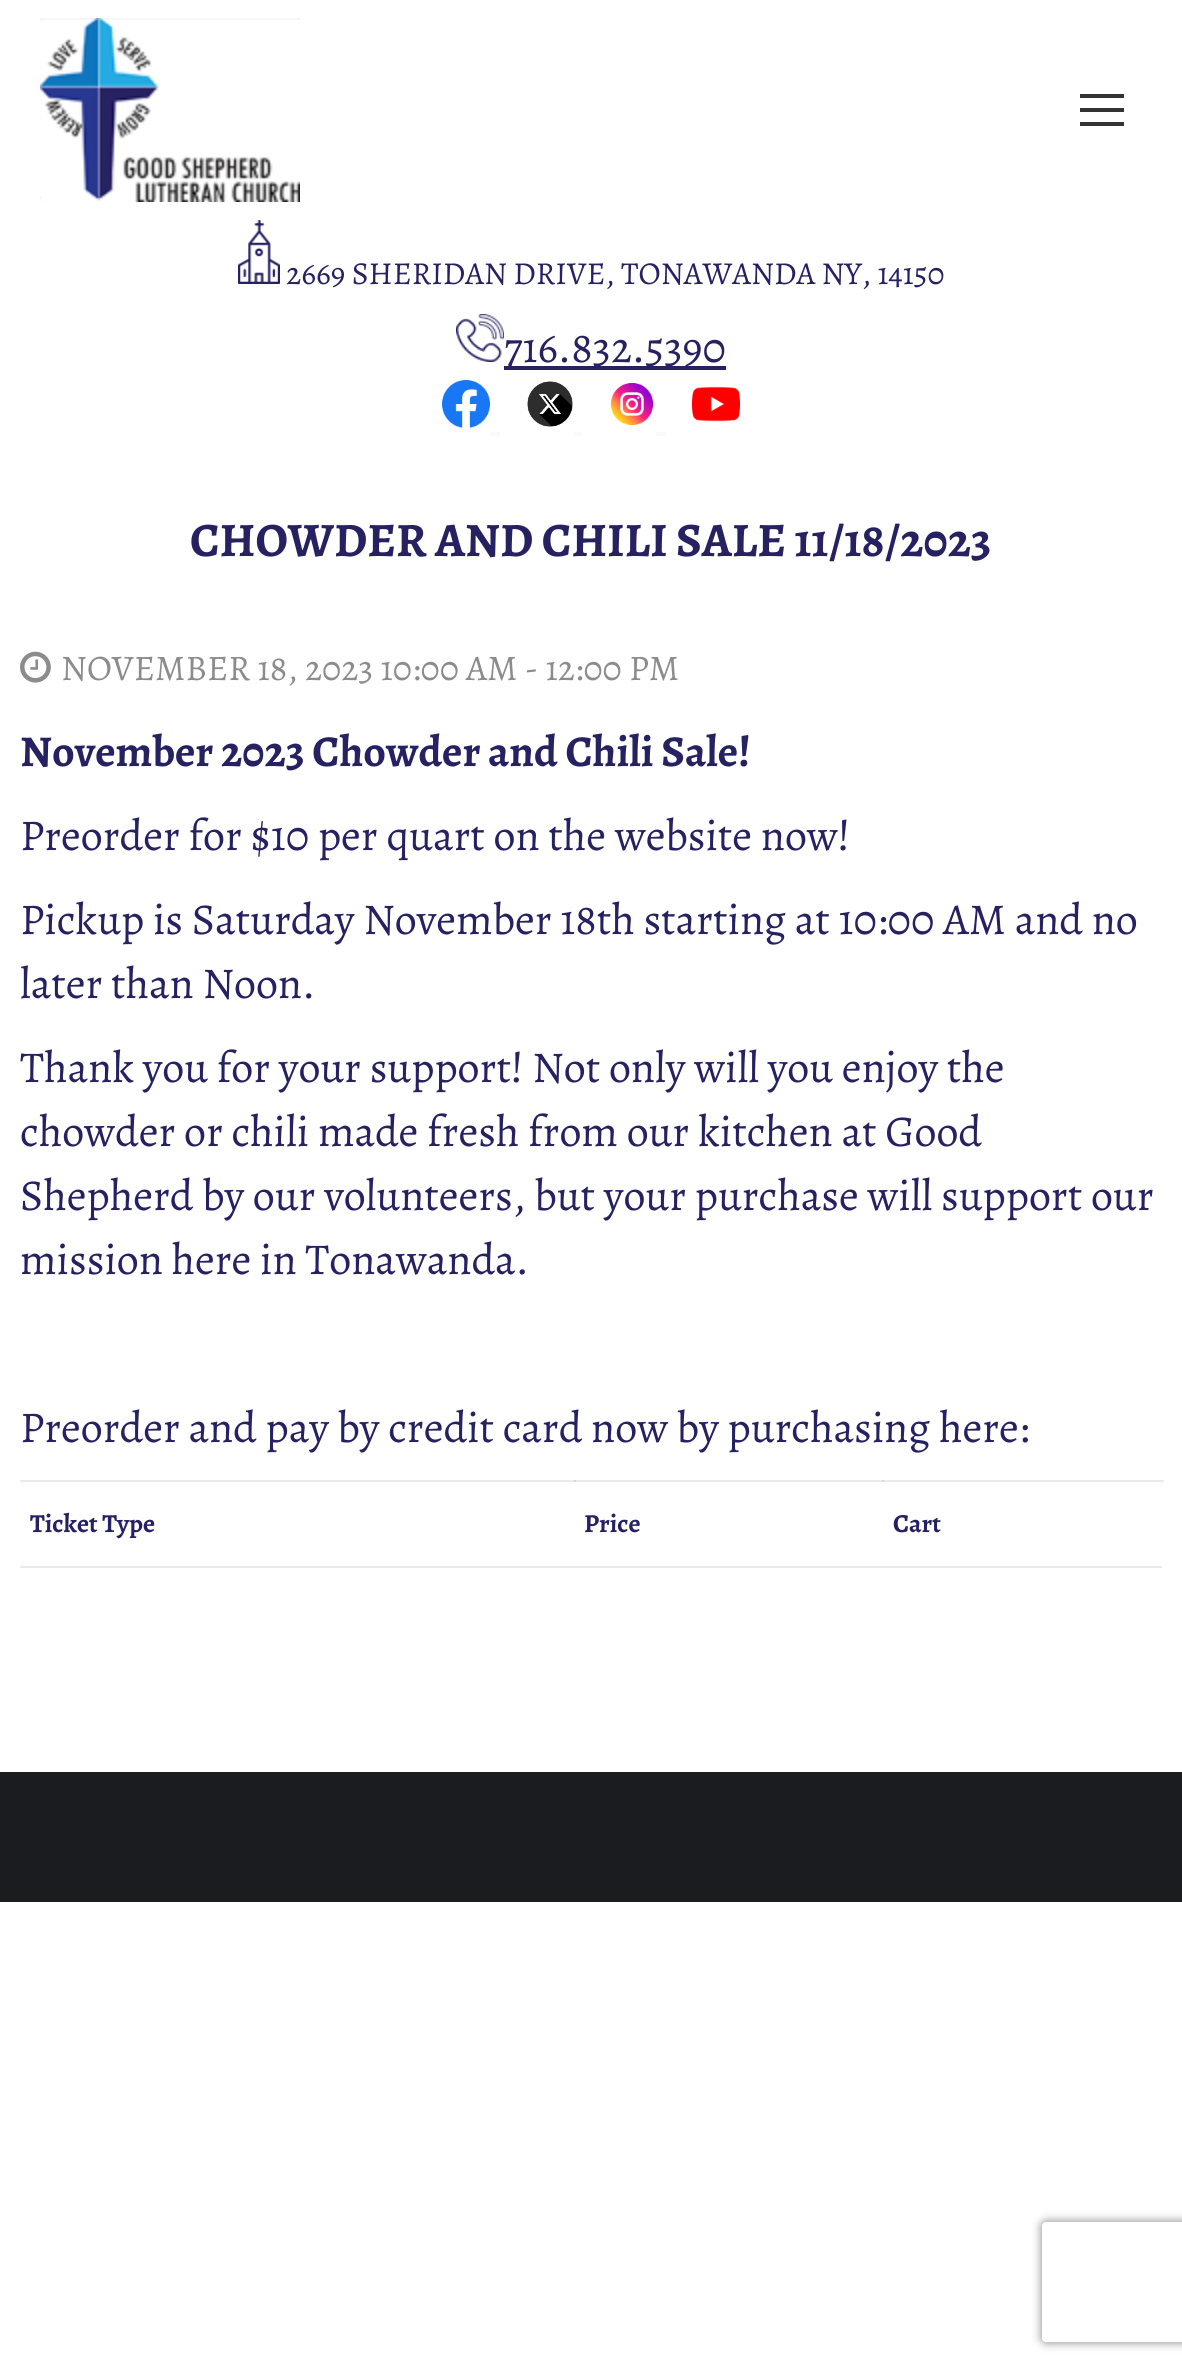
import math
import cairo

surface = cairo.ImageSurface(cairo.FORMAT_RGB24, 1182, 2370)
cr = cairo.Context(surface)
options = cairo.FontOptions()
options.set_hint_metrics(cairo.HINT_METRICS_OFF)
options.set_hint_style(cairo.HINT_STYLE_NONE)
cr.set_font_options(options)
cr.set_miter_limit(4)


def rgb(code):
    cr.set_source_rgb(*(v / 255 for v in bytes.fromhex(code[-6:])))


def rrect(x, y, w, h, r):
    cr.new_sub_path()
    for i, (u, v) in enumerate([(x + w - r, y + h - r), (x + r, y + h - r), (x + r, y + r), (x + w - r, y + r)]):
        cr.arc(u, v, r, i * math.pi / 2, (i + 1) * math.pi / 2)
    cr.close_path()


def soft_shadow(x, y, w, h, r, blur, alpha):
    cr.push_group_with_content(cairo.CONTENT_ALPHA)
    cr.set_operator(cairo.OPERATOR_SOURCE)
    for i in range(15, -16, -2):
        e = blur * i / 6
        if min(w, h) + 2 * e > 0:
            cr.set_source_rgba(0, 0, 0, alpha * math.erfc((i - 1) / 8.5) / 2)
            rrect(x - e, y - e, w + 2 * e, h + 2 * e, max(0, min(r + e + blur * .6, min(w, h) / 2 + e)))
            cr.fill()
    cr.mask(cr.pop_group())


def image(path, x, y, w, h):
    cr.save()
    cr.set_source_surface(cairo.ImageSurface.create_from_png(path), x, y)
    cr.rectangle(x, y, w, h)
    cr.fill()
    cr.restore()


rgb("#ffffff")
cr.paint()
rgb("#ebebeb")
cr.rectangle(20, 1480, 1144, 2)
cr.fill()
rgb("#d8d8d8")
cr.rectangle(574, 1480, 2, 2)
cr.fill()
image("img/1.png", 40, 18, 260, 184)
for x, y, w, h, color in [
    (1080, 94, 44, 4, "#333333"),
    (1080, 108, 44, 4, "#333333"),
    (1080, 122, 44, 4, "#333333"),
]:
    rgb(color)
    cr.rectangle(x, y, w, h)
    cr.fill()
image("img/2.png", 238, 220, 42, 64)
image("img/3.png", 456, 314, 48, 48)
rgb("#262262")
cr.rectangle(504, 366, 222, 4)
cr.fill()
image("img/4.png", 442, 380, 48, 48)
image("img/5.png", 527, 381, 46, 46)
image("img/6.png", 610, 382, 44, 44)
image("img/7.png", 692, 386, 48, 36)
for x, y, w, h, color in [
    (490, 432, 10, 4, "#f9f9f9"),
    (574, 432, 8, 4, "#f9f9f9"),
    (656, 432, 10, 4, "#f9f9f9"),
]:
    rgb(color)
    cr.rectangle(x, y, w, h)
    cr.fill()
image("img/8.png", 20, 651, 31, 32)
for x, y, w, h, color in [
    (20, 1566, 1142, 2, "#ebebeb"),
    (882, 1480, 2, 2, "#d8d8d8"),
    (0, 1772, 1182, 130, "#1a1c20"),
]:
    rgb(color)
    cr.rectangle(x, y, w, h)
    cr.fill()
cr.save()
cr.set_fill_rule(cairo.FILL_RULE_EVEN_ODD)
cr.new_path()
cr.move_to(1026, 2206)
cr.line_to(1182, 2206)
cr.line_to(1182, 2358)
cr.line_to(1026, 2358)
cr.close_path()
cr.move_to(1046, 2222)
cr.line_to(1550, 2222)
cr.curve_to(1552, 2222, 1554, 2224, 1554, 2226)
cr.line_to(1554, 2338)
cr.curve_to(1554, 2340, 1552, 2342, 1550, 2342)
cr.line_to(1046, 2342)
cr.curve_to(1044, 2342, 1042, 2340, 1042, 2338)
cr.line_to(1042, 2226)
cr.curve_to(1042, 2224, 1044, 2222, 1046, 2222)
cr.close_path()
cr.clip()
rgb("#808080")
soft_shadow(1042, 2222, 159, 120, 4, 5, 1)
cr.restore()
cr.select_font_face("Alegreya")
cr.set_font_size(32)
rgb("#262262")
cr.move_to(286, 284)
cr.show_text("2669 SHERIDAN DRIVE, TONAWANDA NY, 14150")
cr.set_font_size(44)
cr.move_to(504, 362)
cr.show_text("716.832.5390")
cr.select_font_face("Alegreya", cairo.FONT_SLANT_NORMAL, cairo.FONT_WEIGHT_BOLD)
cr.set_font_size(48)
cr.move_to(190, 556)
cr.show_text("CHOWDER AND CHILI SALE 11/18/2023")
cr.select_font_face("Alegreya")
cr.set_font_size(36)
rgb("#8c8c8c")
cr.move_to(61, 680)
cr.show_text("NOVEMBER 18, 2023 10:00 AM - 12:00 PM")
cr.select_font_face("Alegreya", cairo.FONT_SLANT_NORMAL, cairo.FONT_WEIGHT_BOLD)
cr.set_font_size(44)
rgb("#262262")
cr.move_to(20, 766)
cr.show_text("November 2023 Chowder and Chili Sale!")
cr.select_font_face("Alegreya")
for x, y, s in [
    (20, 850, "Preorder for $10 per quart on the website now!"),
    (20, 934, "Pickup is Saturday November 18th starting at 10:00 AM and no"),
    (20, 998, "later than Noon."),
    (20, 1082, "Thank you for your support! Not only will you enjoy the"),
    (20, 1146, "chowder or chili made fresh from our kitchen at Good"),
    (20, 1210, "Shepherd by our volunteers, but your purchase will support our"),
    (20, 1274, "mission here in Tonawanda."),
    (20, 1442, "Preorder and pay by credit card now by purchasing here:"),
]:
    cr.move_to(x, y)
    cr.show_text(s)
cr.select_font_face("Alegreya", cairo.FONT_SLANT_NORMAL, cairo.FONT_WEIGHT_BOLD)
cr.set_font_size(26)
for x, y, s in [
    (30, 1532, "Ticket Type"),
    (584, 1532, "Price"),
    (893, 1532, "Cart"),
]:
    cr.move_to(x, y)
    cr.show_text(s)
surface.write_to_png("page.png")
